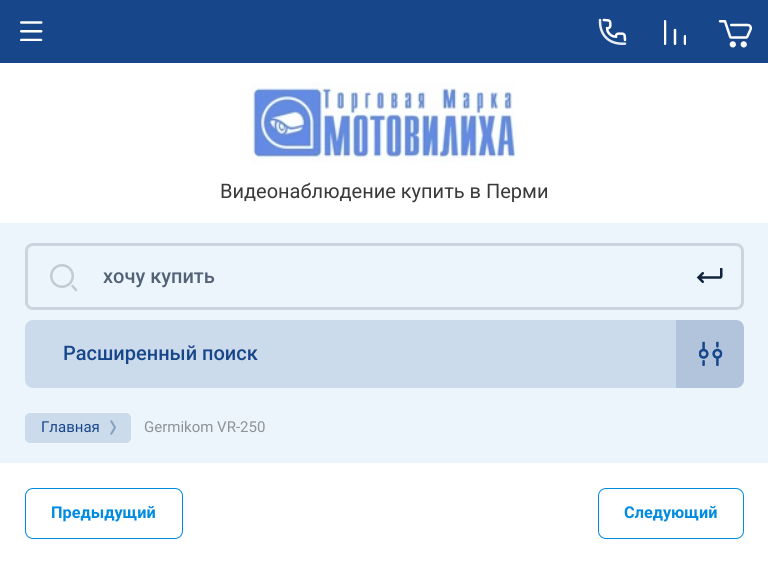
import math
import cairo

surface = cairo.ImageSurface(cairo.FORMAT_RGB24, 768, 567)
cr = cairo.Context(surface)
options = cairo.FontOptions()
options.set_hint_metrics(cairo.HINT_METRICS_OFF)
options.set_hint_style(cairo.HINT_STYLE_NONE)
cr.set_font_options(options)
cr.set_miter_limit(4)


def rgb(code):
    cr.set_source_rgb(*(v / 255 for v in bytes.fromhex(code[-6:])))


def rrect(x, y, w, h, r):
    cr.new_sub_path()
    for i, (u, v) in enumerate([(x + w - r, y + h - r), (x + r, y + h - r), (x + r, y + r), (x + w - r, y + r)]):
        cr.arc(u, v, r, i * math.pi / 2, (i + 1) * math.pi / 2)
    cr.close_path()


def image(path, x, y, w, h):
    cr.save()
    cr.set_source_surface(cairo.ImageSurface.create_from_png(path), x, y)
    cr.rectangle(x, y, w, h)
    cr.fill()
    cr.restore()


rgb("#ecf5fc")
cr.paint()
rgb("#17468a")
cr.rectangle(0, 0, 768, 63)
cr.fill()
image("img/1.png", 20, 21, 23, 20)
image("img/2.png", 598, 18, 29, 27)
image("img/3.png", 664, 20, 22, 25)
image("img/4.png", 718, 20, 34, 28)
rgb("#ffffff")
cr.rectangle(0, 63, 768, 160)
cr.fill()
image("img/5.png", 252, 82, 263, 81)
rrect(26.5, 244.5, 716, 64, 6.5)
rgb("#cbd5df")
cr.set_line_width(3)
cr.stroke()
cr.arc(62, 276, 10.75, 0, 2 * math.pi)
rgb("#c0cbd5")
cr.set_line_width(2.5)
cr.stroke()
cr.new_path()
cr.move_to(72.5, 286)
cr.line_to(76, 290)
cr.set_line_cap(cairo.LINE_CAP_ROUND)
cr.stroke()
image("img/6.png", 696, 268, 27, 15)
rgb("#ccdbeb")
rrect(25, 320, 719, 68, 8)
cr.fill()
cr.set_source_rgba(0.09, 0.275, 0.541, 0.15)
cr.new_path()
cr.move_to(676, 320)
cr.line_to(736, 320)
cr.curve_to(740.5, 320, 744, 323.5, 744, 328)
cr.line_to(744, 380)
cr.curve_to(744, 384.5, 740.5, 388, 736, 388)
cr.line_to(676, 388)
cr.close_path()
cr.fill()
image("img/7.png", 699, 341, 24, 25)
rgb("#ccdbeb")
rrect(25, 413, 106, 30, 5)
cr.fill()
image("img/8.png", 110, 420, 6, 15)
rgb("#ffffff")
cr.rectangle(0, 463, 768, 104)
cr.fill()
rrect(25.5, 488.5, 157, 50, 7.5)
rgb("#008be1")
cr.set_line_width(1)
cr.set_line_cap(cairo.LINE_CAP_BUTT)
cr.stroke()
rrect(598.5, 488.5, 145, 50, 7.5)
cr.stroke()
rgb("#fbfafb")
cr.rectangle(354, 566, 1, 1)
cr.fill()
cr.select_font_face("Roboto")
cr.set_font_size(20)
rgb("#393939")
cr.move_to(220, 198)
cr.show_text("Видеонаблюдение купить в Перми")
cr.select_font_face("Roboto Medium")
rgb("#526175")
cr.move_to(103, 283)
cr.show_text("хочу купить")
rgb("#17468a")
cr.move_to(63, 360)
cr.show_text("Расширенный поиск")
cr.select_font_face("Roboto")
cr.set_font_size(15)
cr.move_to(41, 432)
cr.show_text("Главная")
rgb("#8e9397")
cr.move_to(144, 432)
cr.show_text("Germikom VR-250")
cr.select_font_face("Roboto", cairo.FONT_SLANT_NORMAL, cairo.FONT_WEIGHT_BOLD)
cr.set_font_size(16.25)
rgb("#008be1")
cr.move_to(51, 518)
cr.show_text("Предыдущий")
cr.move_to(624, 518)
cr.show_text("Следующий")
surface.write_to_png("page.png")
